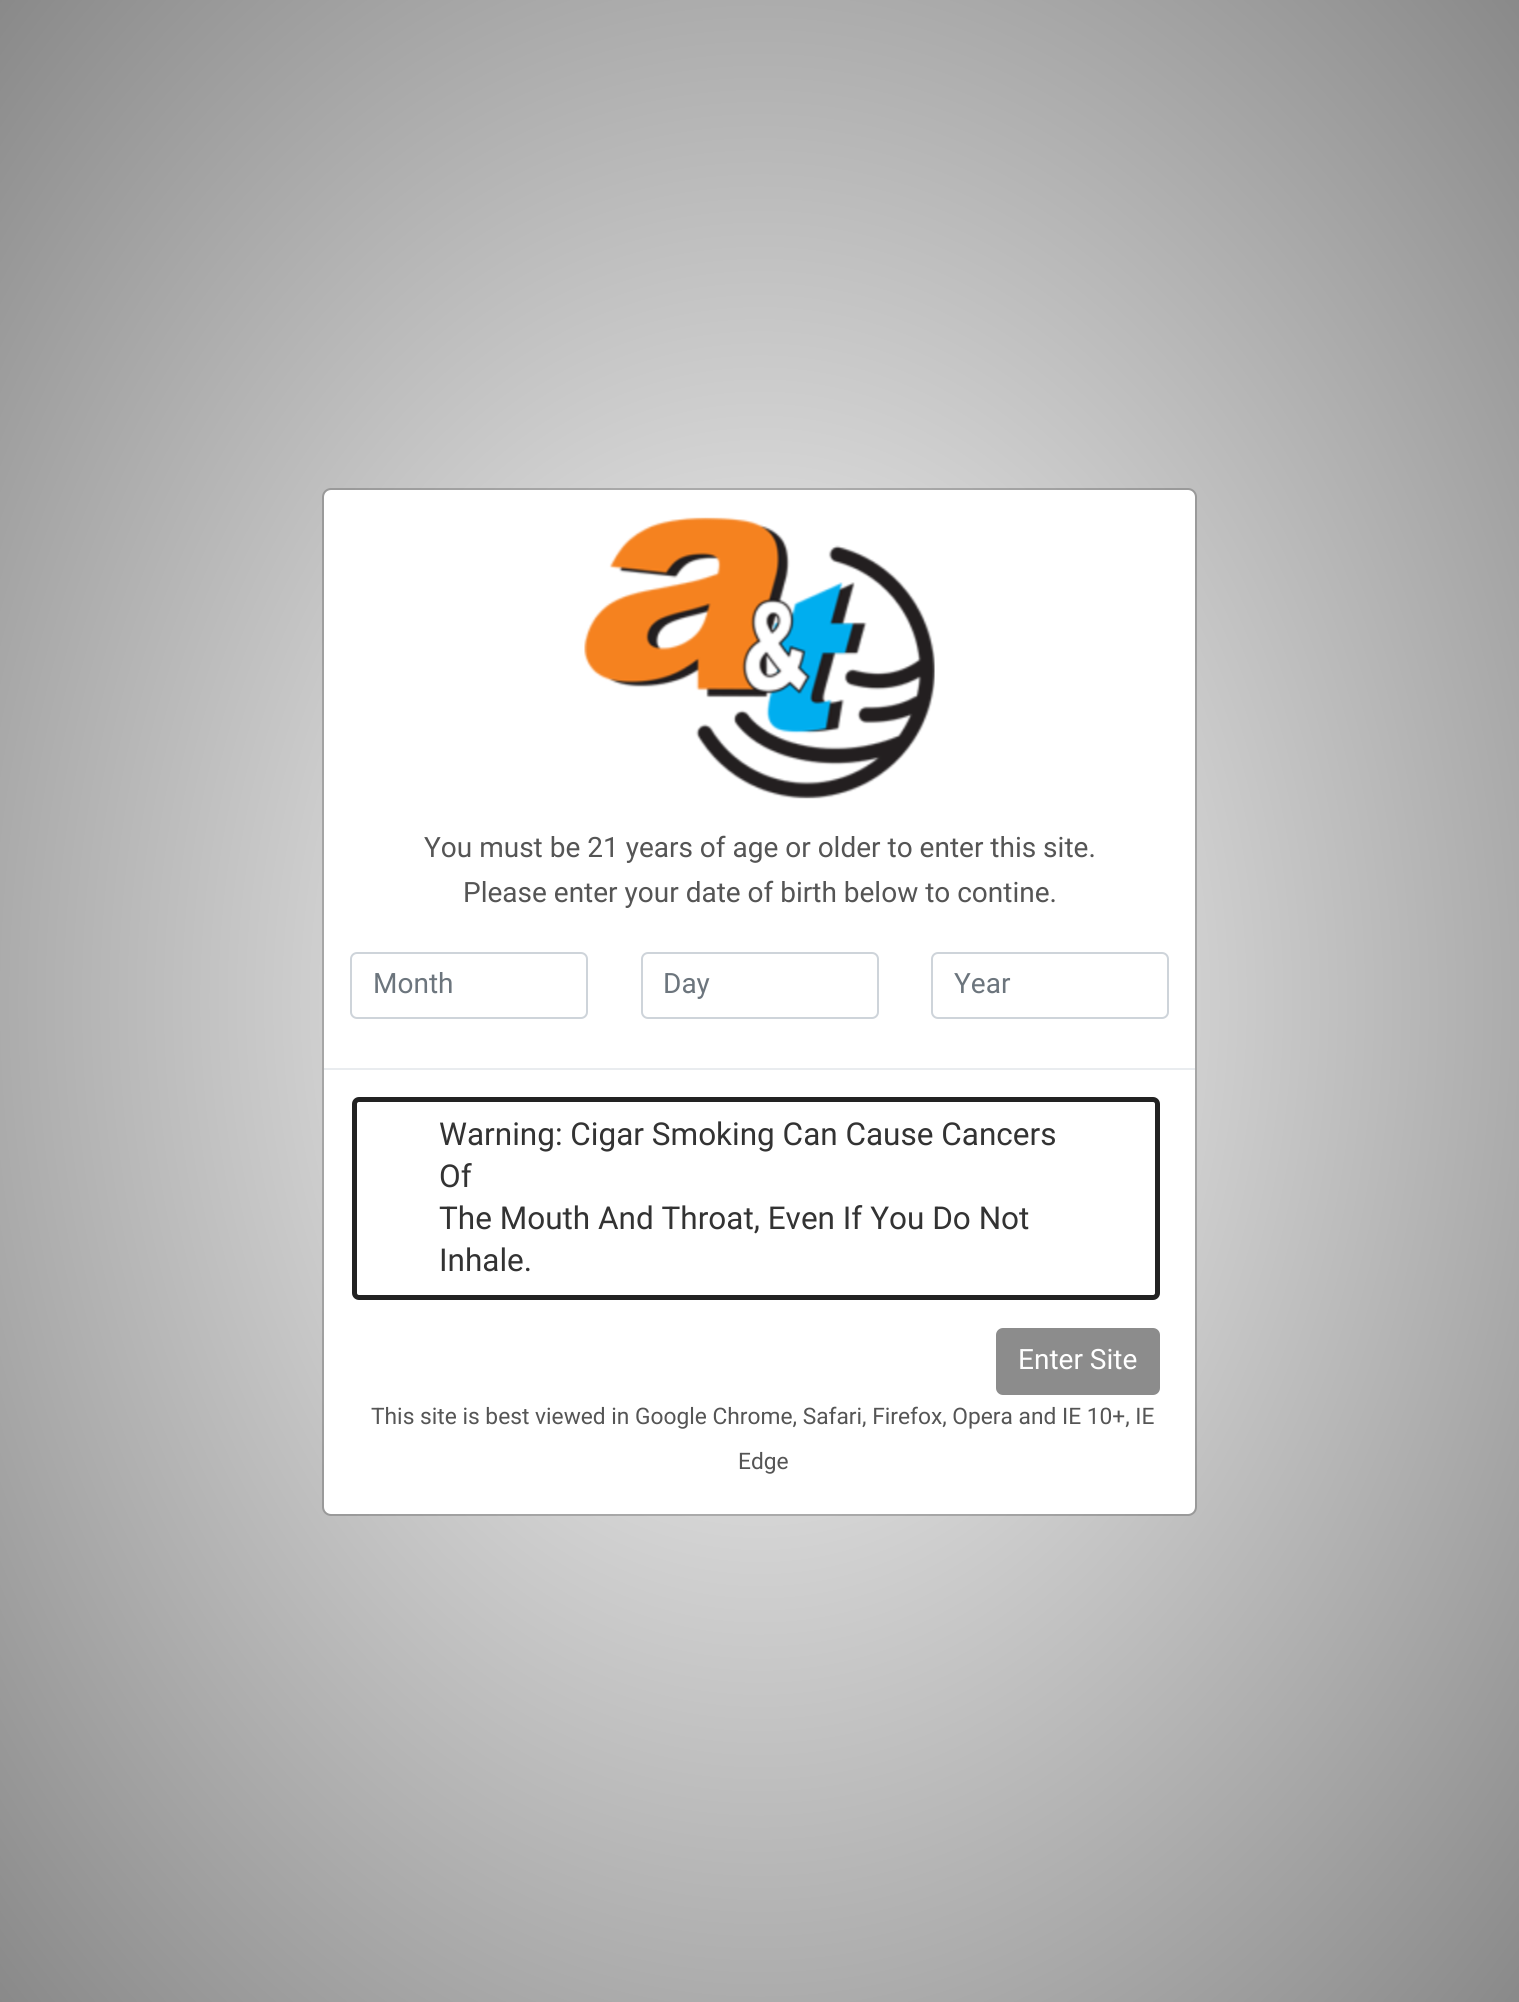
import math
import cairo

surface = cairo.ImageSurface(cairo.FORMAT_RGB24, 1519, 2002)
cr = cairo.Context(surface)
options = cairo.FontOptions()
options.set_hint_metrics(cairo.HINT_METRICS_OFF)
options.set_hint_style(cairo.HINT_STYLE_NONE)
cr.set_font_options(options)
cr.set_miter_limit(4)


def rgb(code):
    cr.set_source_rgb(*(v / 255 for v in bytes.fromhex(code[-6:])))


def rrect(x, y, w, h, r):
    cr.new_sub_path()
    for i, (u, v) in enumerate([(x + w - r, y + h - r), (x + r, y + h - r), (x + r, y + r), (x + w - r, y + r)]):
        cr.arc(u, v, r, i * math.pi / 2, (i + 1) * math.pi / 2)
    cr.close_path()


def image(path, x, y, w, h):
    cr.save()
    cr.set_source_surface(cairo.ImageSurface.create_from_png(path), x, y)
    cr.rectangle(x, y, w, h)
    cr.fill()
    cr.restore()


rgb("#ffffff")
cr.paint()
gradient = cairo.RadialGradient(0, 0, 0, 0, 0, 1)
gradient.set_matrix(cairo.Matrix(1 / 1074, 0, 0, 1 / 1416, -1 * 760 / 1074, -1 * 1001 / 1416))
gradient.add_color_stop_rgba(0, 1, 1, 1, 1)
gradient.add_color_stop_rgba(1, 0.537, 0.537, 0.537, 1)
cr.set_source(gradient)
cr.rectangle(0, 0, 1519, 2002)
cr.fill()
rgb("#ffffff")
rrect(324, 490, 871, 1024, 7)
cr.fill()
rrect(323, 489, 873, 1026, 8)
cr.set_source_rgba(0, 0, 0, 0.2)
cr.stroke()
image("img/1.png", 584, 517, 351, 282)
rrect(351, 953, 236, 65, 6)
rgb("#ced4da")
cr.stroke()
rrect(642, 953, 236, 65, 6)
cr.stroke()
rrect(932, 953, 236, 65, 6)
cr.stroke()
rgb("#e9ecef")
cr.rectangle(324, 1068, 871, 2)
cr.fill()
rrect(354.5, 1099.5, 803, 198, 4.5)
rgb("#222222")
cr.set_line_width(5)
cr.stroke()
rgb("#8c8c8c")
rrect(997, 1329, 162, 65, 6)
cr.fill_preserve()
cr.set_line_width(2)
cr.stroke()
cr.select_font_face("Roboto")
cr.set_font_size(28)
rgb("#555555")
cr.move_to(424, 857)
cr.show_text("You must be 21 years of age or older to enter this site.")
cr.move_to(463, 902)
cr.show_text("Please enter your date of birth below to contine.")
rgb("#6c757d")
for x, y, s in [
    (373, 993, "Month"),
    (663, 993, "Day"),
    (954, 993, "Year"),
]:
    cr.move_to(x, y)
    cr.show_text(s)
cr.set_font_size(31.5)
rgb("#333333")
for x, y, s in [
    (439, 1145, "Warning: Cigar Smoking Can Cause Cancers"),
    (439, 1187, "Of"),
    (439, 1229, "The Mouth And Throat, Even If You Do Not"),
    (439, 1271, "Inhale."),
]:
    cr.move_to(x, y)
    cr.show_text(s)
cr.set_font_size(28)
rgb("#ffffff")
cr.move_to(1018, 1369)
cr.show_text("Enter Site")
cr.set_font_size(22.75)
rgb("#555555")
cr.move_to(371, 1424)
cr.show_text("This site is best viewed in Google Chrome, Safari, Firefox, Opera and IE 10+, IE")
cr.move_to(738, 1469)
cr.show_text("Edge")
surface.write_to_png("page.png")
